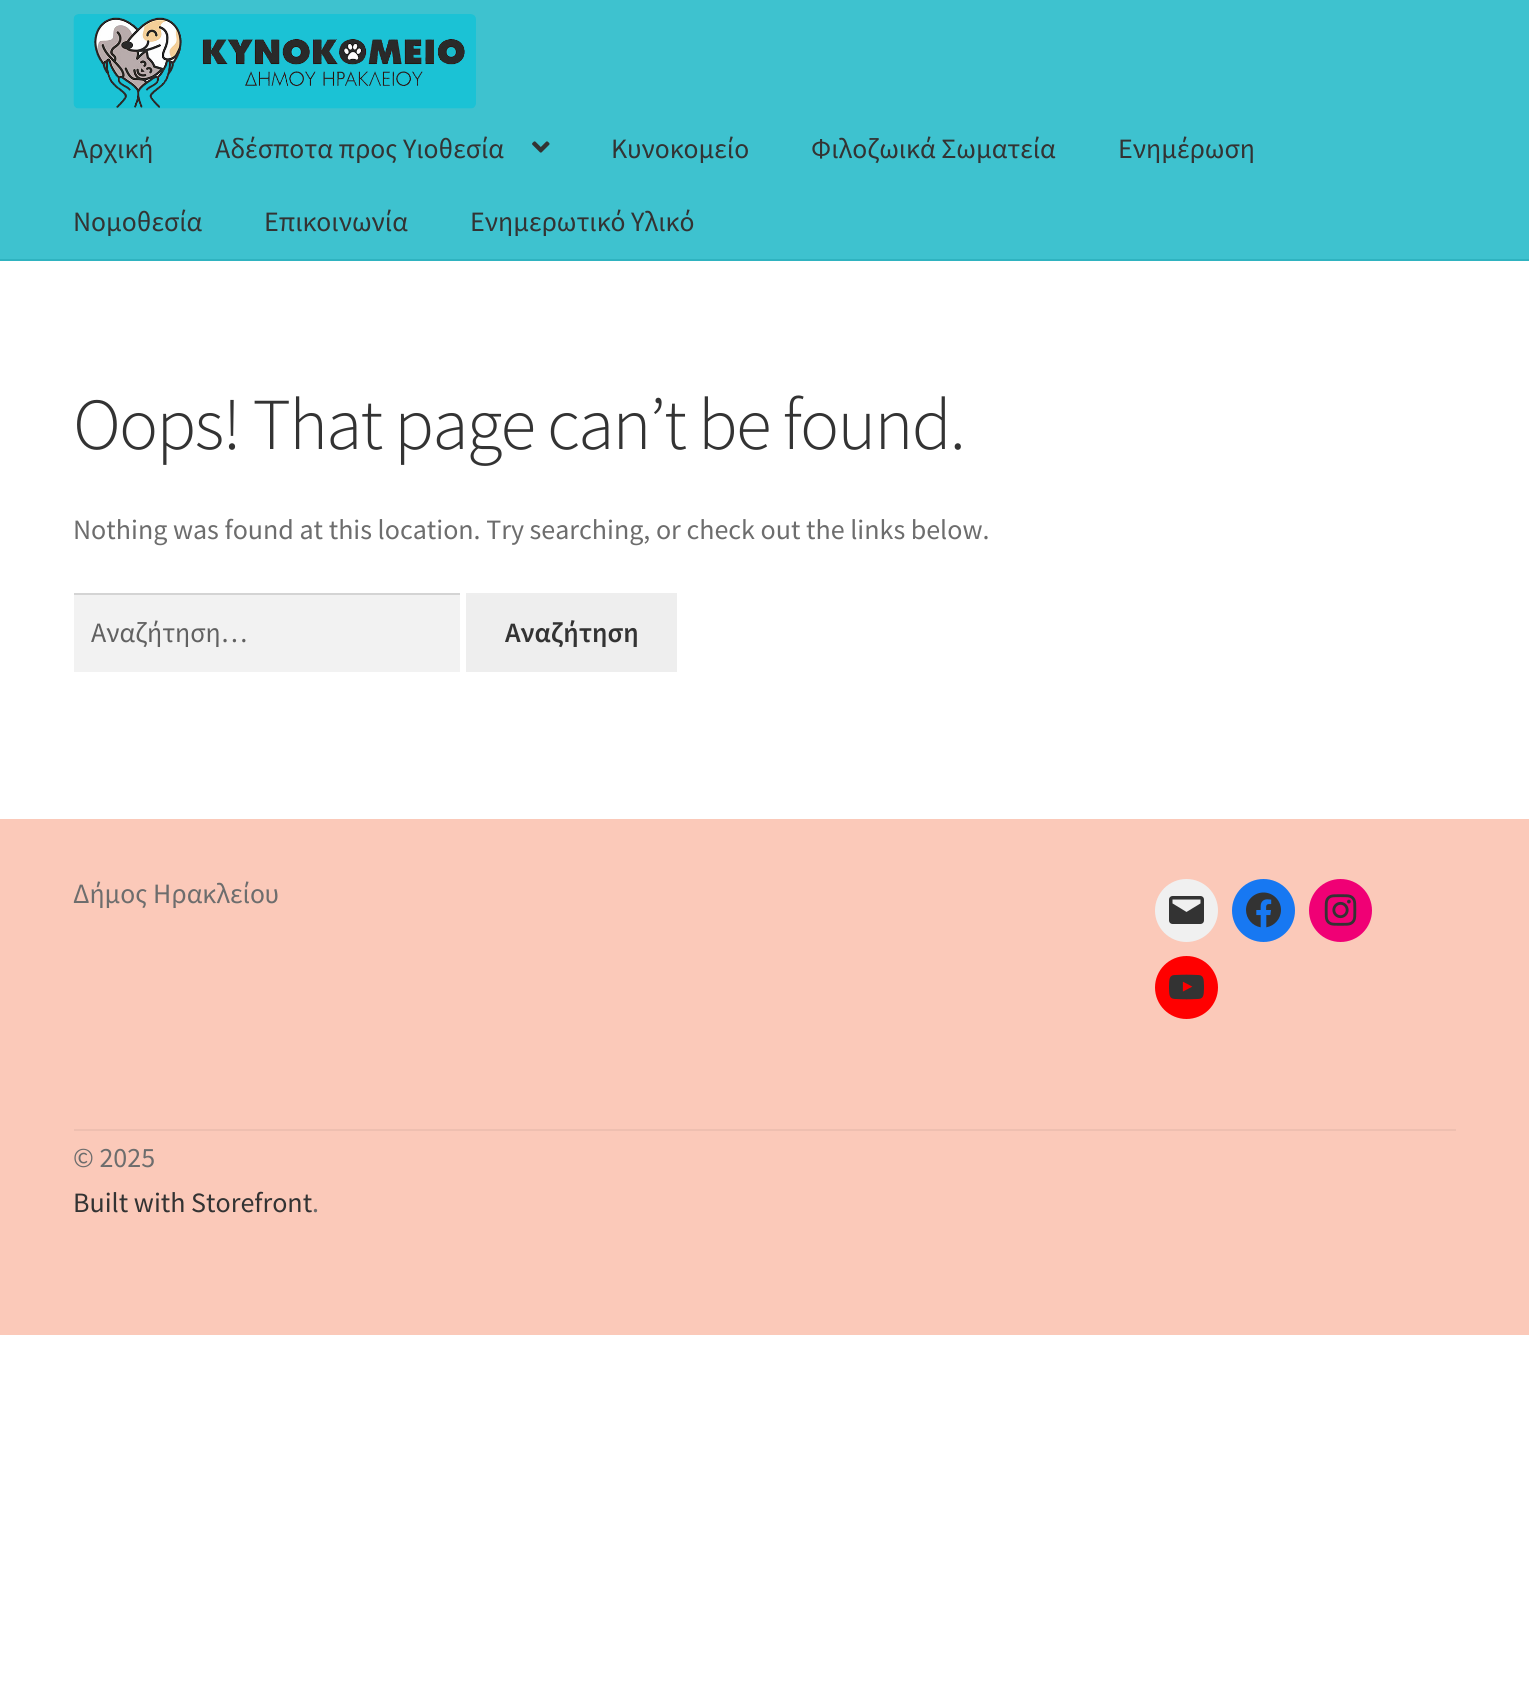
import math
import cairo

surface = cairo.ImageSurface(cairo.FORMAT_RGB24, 1529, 1683)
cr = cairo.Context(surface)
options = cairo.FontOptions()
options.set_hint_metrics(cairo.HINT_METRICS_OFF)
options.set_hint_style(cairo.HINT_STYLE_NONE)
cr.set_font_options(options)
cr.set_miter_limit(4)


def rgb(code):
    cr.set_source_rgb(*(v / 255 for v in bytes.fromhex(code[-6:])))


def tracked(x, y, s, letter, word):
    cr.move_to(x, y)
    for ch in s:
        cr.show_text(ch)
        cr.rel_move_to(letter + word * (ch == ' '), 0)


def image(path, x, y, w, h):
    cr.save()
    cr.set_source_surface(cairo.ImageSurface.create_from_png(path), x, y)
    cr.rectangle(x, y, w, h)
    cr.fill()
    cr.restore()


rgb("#ffffff")
cr.paint()
rgb("#3ec2cf")
cr.rectangle(0, 0, 1529, 259)
cr.fill()
rgb("#2fb3c0")
cr.rectangle(0, 259, 1529, 2)
cr.fill()
image("img/1.png", 73, 14, 403, 95)
image("img/2.png", 532, 141, 18, 12)
for x, y, w, h, color in [
    (74, 595, 386, 77, "#f2f2f2"),
    (74, 593, 386, 2, "#d4d4d4"),
    (466, 593, 211, 79, "#eeeeee"),
    (0, 819, 1529, 516, "#fbc9b9"),
    (74, 1129, 1382, 2, "#eebfb0"),
]:
    rgb(color)
    cr.rectangle(x, y, w, h)
    cr.fill()
rgb("#f0f0f0")
cr.arc(1186.5, 910.5, 31.5, 0, 2 * math.pi)
cr.fill()
image("img/3.png", 1169, 896, 35, 28)
rgb("#1778f2")
cr.arc(1263.5, 910.5, 31.5, 0, 2 * math.pi)
cr.fill()
image("img/4.png", 1246, 892, 35, 36)
rgb("#f00075")
cr.arc(1340.5, 910.5, 31.5, 0, 2 * math.pi)
cr.fill()
image("img/5.png", 1324, 894, 33, 32)
rgb("#ff0000")
cr.arc(1186.5, 987.5, 31.5, 0, 2 * math.pi)
cr.fill()
image("img/6.png", 1169, 974, 35, 26)
cr.select_font_face("Source Sans Pro")
cr.set_font_size(28)
rgb("#333333")
for x, y, s in [
    (73, 158, "Αρχική"),
    (215, 158, "Αδέσποτα προς Υιοθεσία"),
    (611, 158, "Κυνοκομείο"),
    (811, 158, "Φιλοζωικά Σωματεία"),
    (1118, 158, "Ενημέρωση"),
    (73, 231, "Νομοθεσία"),
    (264, 231, "Επικοινωνία"),
    (470, 231, "Ενημερωτικό Υλικό"),
]:
    cr.move_to(x, y)
    cr.show_text(s)
cr.select_font_face("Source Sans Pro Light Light")
cr.set_font_size(73.25)
tracked(73, 449, "Oops! That page can’t be found.", -1.75, 0)
cr.select_font_face("Source Sans Pro")
cr.set_font_size(28)
rgb("#6d6d6d")
cr.move_to(73, 539)
cr.show_text("Nothing was found at this location. Try searching, or check out the links below.")
rgb("#616161")
cr.move_to(91, 642)
cr.show_text("Αναζήτηση…")
cr.select_font_face("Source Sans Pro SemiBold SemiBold")
rgb("#333333")
cr.move_to(505, 642)
cr.show_text("Αναζήτηση")
cr.select_font_face("Source Sans Pro")
rgb("#6d6d6d")
cr.move_to(73, 903)
cr.show_text("Δήμος Ηρακλείου")
cr.move_to(73, 1167)
cr.show_text("© 2025")
rgb("#333333")
cr.move_to(73, 1212)
cr.show_text("Built with Storefront")
rgb("#6d6d6d")
cr.move_to(312, 1212)
cr.show_text(".")
surface.write_to_png("page.png")
